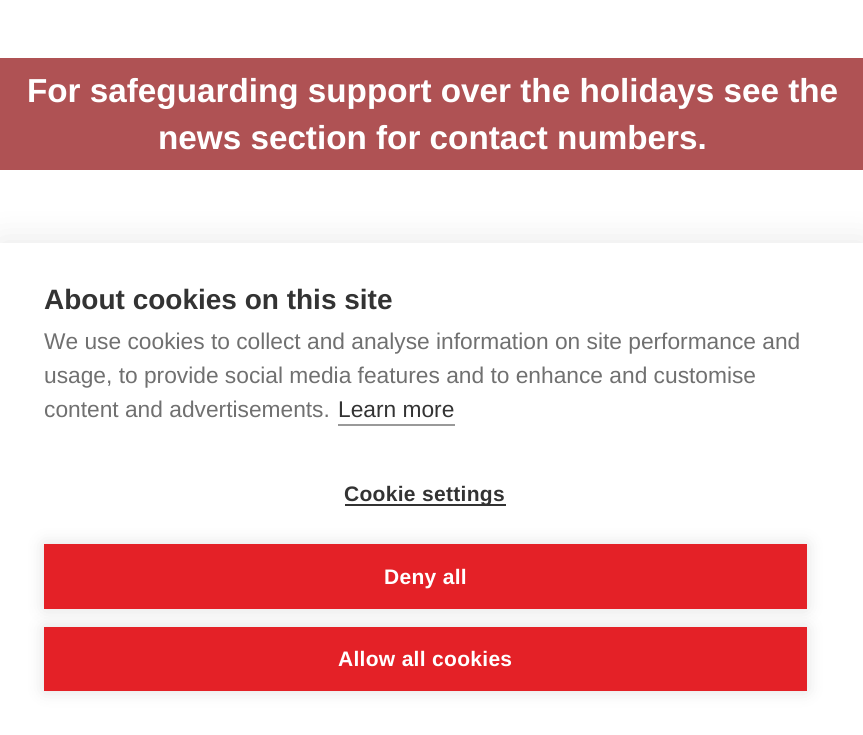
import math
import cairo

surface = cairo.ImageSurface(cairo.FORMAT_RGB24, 863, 735)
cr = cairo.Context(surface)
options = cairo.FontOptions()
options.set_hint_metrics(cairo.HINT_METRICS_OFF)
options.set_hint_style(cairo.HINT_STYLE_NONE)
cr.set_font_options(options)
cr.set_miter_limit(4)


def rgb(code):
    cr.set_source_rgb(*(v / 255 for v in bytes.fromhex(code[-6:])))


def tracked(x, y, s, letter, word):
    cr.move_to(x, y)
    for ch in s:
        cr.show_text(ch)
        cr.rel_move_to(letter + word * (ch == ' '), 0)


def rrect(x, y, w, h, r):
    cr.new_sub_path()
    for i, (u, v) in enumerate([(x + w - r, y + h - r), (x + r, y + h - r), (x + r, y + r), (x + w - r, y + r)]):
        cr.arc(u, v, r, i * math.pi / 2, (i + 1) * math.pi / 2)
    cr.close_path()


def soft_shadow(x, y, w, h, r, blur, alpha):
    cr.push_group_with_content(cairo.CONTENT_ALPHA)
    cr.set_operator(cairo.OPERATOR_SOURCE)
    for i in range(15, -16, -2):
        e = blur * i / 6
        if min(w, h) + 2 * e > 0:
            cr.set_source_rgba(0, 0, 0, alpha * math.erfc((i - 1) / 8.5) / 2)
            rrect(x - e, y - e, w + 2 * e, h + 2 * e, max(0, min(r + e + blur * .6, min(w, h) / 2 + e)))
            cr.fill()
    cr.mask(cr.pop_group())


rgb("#ffffff")
cr.paint()
rgb("#af5254")
cr.rectangle(0, 58, 863, 112)
cr.fill()
rgb("#000000")
soft_shadow(0, 243, 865, 492, 0, 17.5, 0.1)
for x, y, w, h, color in [
    (0, 243, 863, 492, "#ffffff"),
    (338, 424, 117, 2, "#999999"),
    (345, 504, 161, 2, "#333333"),
]:
    rgb(color)
    cr.rectangle(x, y, w, h)
    cr.fill()
rgb("#000000")
soft_shadow(44, 544, 763, 65, 0, 9, 0.12)
rgb("#e42127")
cr.rectangle(44, 544, 763, 65)
cr.fill()
rgb("#000000")
soft_shadow(44, 627, 763, 64, 0, 9, 0.12)
rgb("#e42127")
cr.rectangle(44, 627, 763, 64)
cr.fill()
cr.select_font_face("Liberation Sans", cairo.FONT_SLANT_NORMAL, cairo.FONT_WEIGHT_BOLD)
cr.set_font_size(33.25)
rgb("#ffffff")
cr.move_to(27, 102)
cr.show_text("For safeguarding support over the holidays see the")
cr.move_to(158, 149)
cr.show_text("news section for contact numbers.")
cr.set_font_size(28)
rgb("#333333")
cr.move_to(44, 309)
cr.show_text("About cookies on this site")
cr.select_font_face("Liberation Sans")
cr.set_font_size(22.75)
rgb("#707070")
for x, y, s in [
    (44, 349, "We use cookies to collect and analyse information on site performance and"),
    (44, 383, "usage, to provide social media features and to enhance and customise"),
    (44, 417, "content and advertisements."),
]:
    cr.move_to(x, y)
    cr.show_text(s)
rgb("#333333")
cr.move_to(338, 417)
cr.show_text("Learn more")
cr.select_font_face("Liberation Sans", cairo.FONT_SLANT_NORMAL, cairo.FONT_WEIGHT_BOLD)
cr.set_font_size(21)
tracked(344, 501, "Cookie settings", 0.3, 0)
rgb("#ffffff")
tracked(384, 584, "Deny all", 0.3, 0)
tracked(338, 666, "Allow all cookies", 0.3, 0)
surface.write_to_png("page.png")
